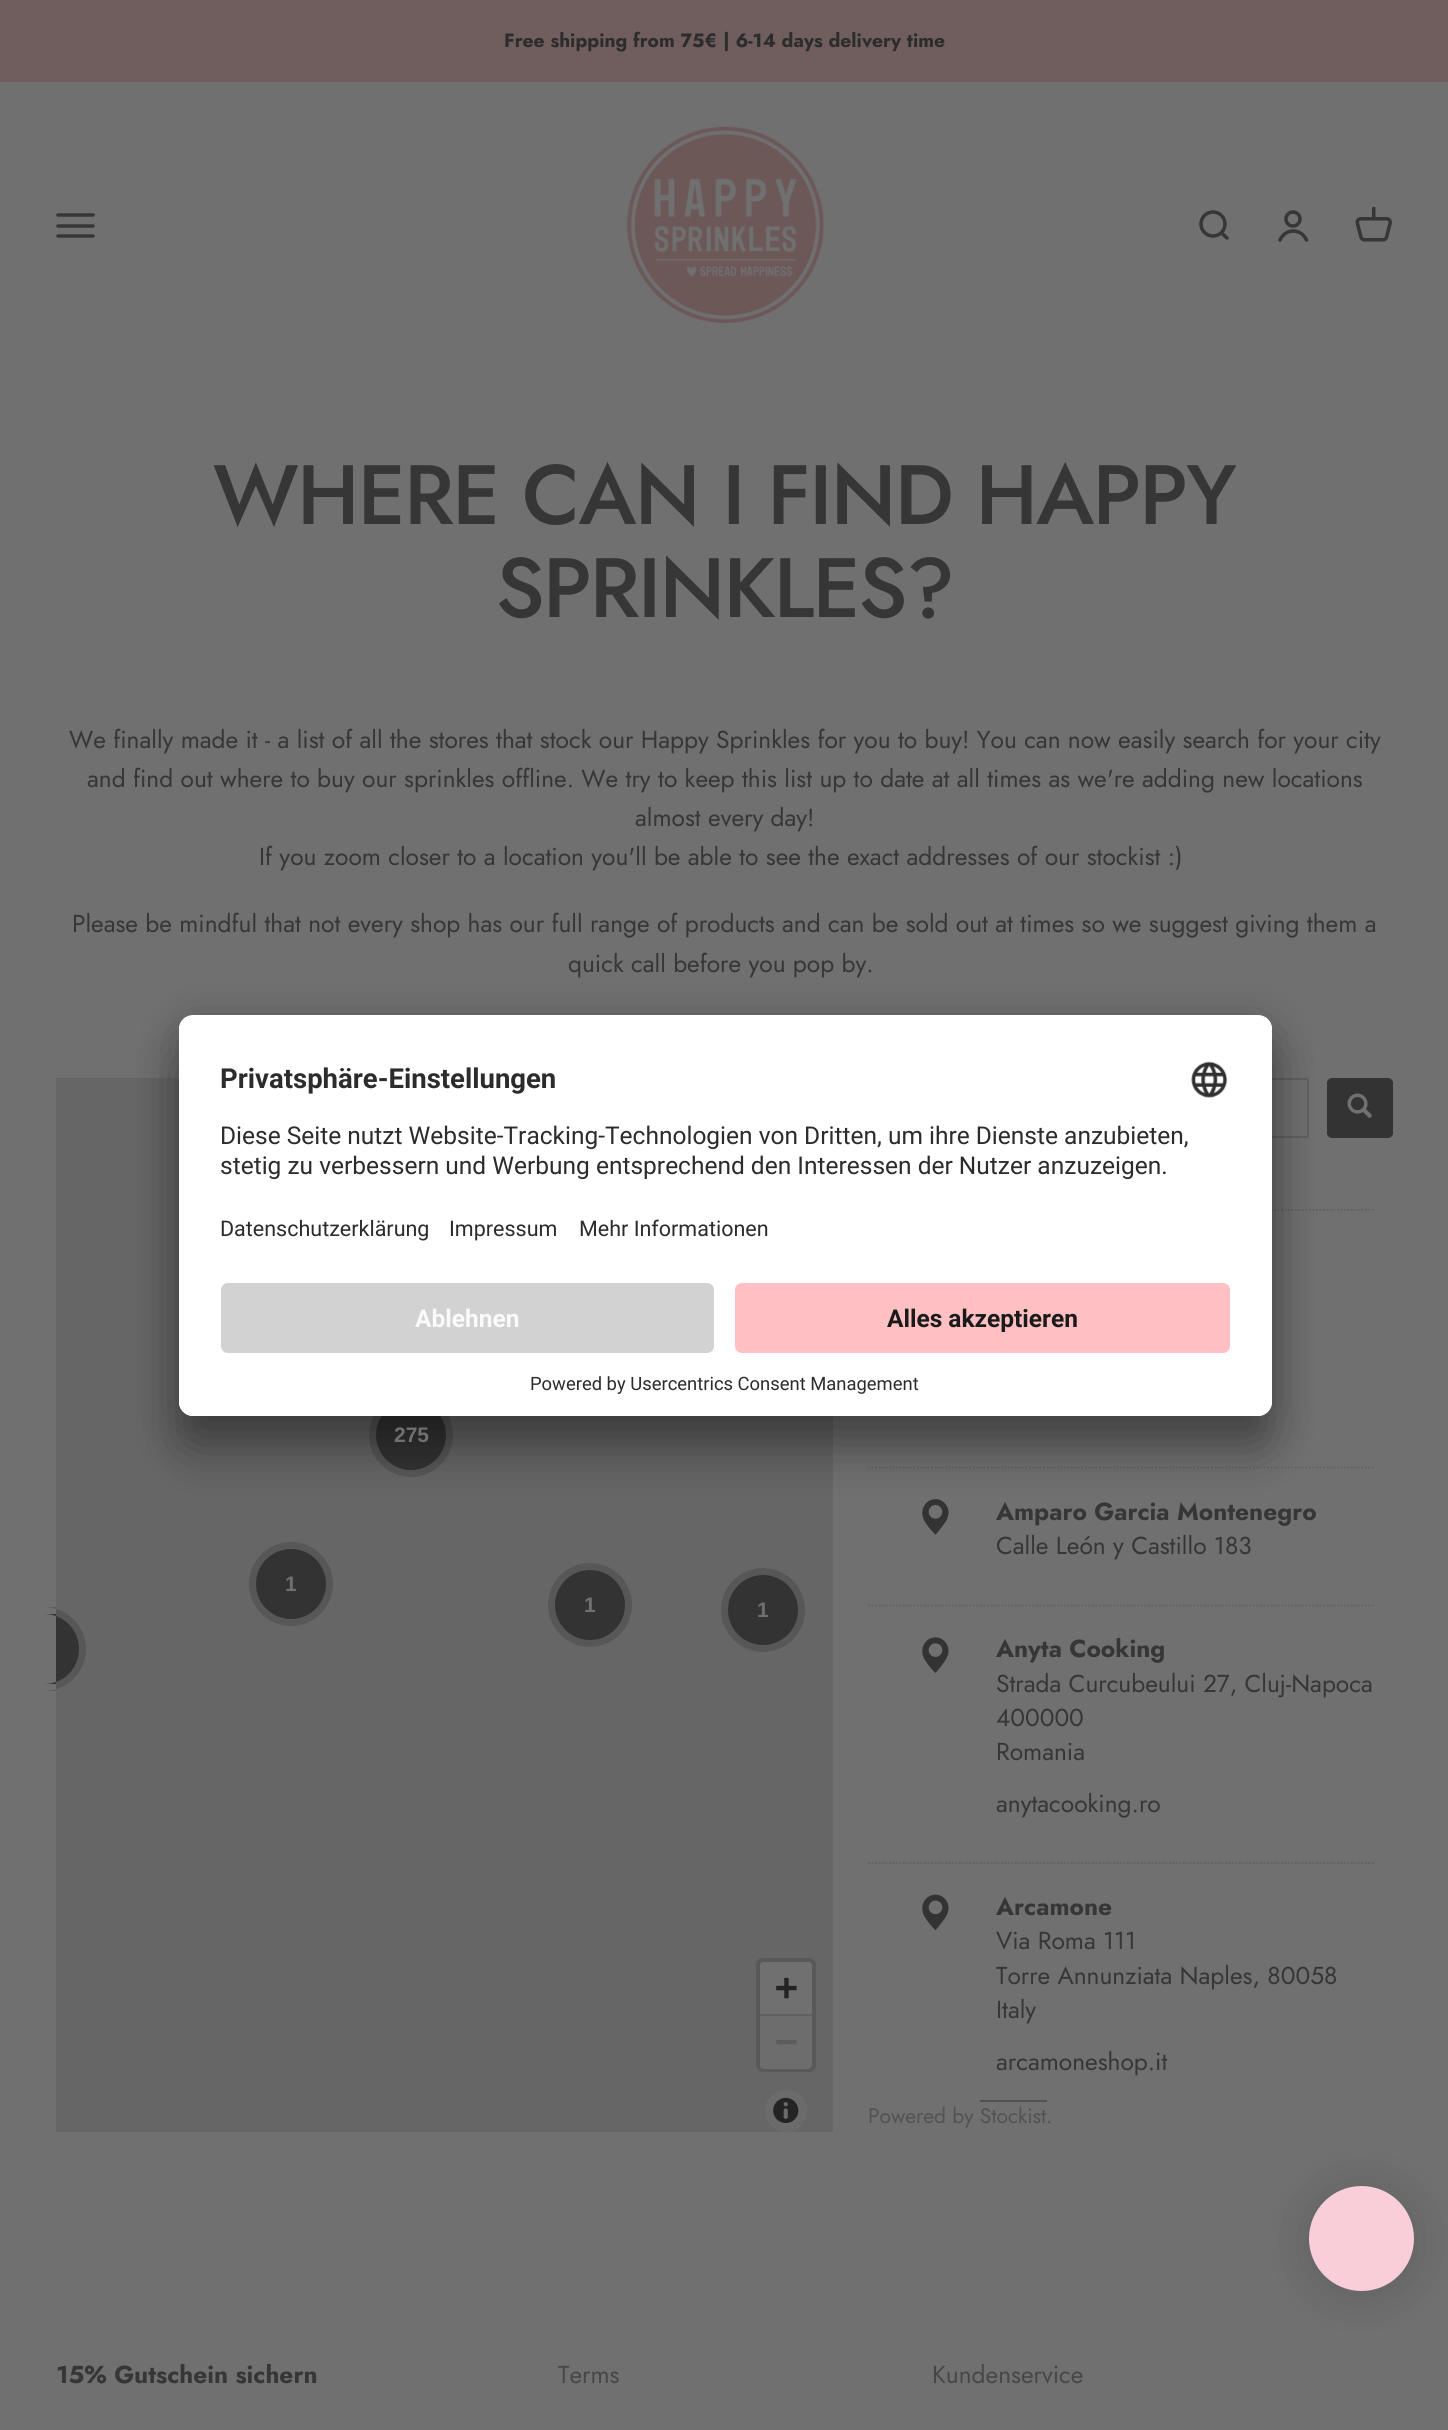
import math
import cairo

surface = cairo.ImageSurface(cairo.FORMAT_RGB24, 1448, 2430)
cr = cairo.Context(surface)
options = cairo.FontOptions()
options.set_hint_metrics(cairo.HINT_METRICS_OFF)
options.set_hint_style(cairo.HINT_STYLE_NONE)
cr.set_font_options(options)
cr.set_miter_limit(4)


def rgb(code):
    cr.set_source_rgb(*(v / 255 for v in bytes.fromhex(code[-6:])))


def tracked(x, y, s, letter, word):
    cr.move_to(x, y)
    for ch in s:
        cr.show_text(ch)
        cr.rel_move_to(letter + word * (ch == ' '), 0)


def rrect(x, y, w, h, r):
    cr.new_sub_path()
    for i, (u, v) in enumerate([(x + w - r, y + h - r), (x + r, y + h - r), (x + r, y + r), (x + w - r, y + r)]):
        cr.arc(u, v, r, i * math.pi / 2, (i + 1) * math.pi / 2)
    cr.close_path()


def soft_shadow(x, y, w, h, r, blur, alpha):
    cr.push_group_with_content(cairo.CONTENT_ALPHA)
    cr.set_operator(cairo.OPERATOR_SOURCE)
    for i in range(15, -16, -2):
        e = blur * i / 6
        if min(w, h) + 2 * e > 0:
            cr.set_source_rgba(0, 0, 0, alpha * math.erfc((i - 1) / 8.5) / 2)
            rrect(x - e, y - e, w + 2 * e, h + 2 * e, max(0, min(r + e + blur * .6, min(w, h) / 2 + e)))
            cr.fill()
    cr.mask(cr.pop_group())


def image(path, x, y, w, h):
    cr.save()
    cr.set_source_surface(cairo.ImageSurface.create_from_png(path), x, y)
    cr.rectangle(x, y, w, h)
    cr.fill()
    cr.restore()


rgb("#707070")
cr.paint()
rgb("#705d5e")
cr.rectangle(0, 0, 1448, 82)
cr.fill()
cr.new_path()
cr.move_to(58, 215)
cr.line_to(93, 215)
cr.move_to(58, 226)
cr.line_to(93, 226)
cr.move_to(58, 236)
cr.line_to(93, 236)
rgb("#363636")
cr.set_line_width(3.5)
cr.set_line_cap(cairo.LINE_CAP_ROUND)
cr.stroke()
image("img/1.png", 626, 126, 198, 198)
cr.arc(1213, 224, 12, 0, 2 * math.pi)
cr.set_line_cap(cairo.LINE_CAP_BUTT)
cr.stroke()
cr.new_path()
cr.move_to(1221.5, 233)
cr.line_to(1227, 238)
cr.set_line_cap(cairo.LINE_CAP_ROUND)
cr.set_line_join(cairo.LINE_JOIN_ROUND)
cr.stroke()
cr.arc(1293, 219, 7, 0, 2 * math.pi)
cr.set_line_cap(cairo.LINE_CAP_BUTT)
cr.set_line_join(cairo.LINE_JOIN_MITER)
cr.stroke()
cr.new_path()
cr.move_to(1280, 240)
cr.curve_to(1285.5, 228, 1301, 228, 1306.5, 240)
cr.set_line_cap(cairo.LINE_CAP_ROUND)
cr.stroke()
image("img/2.png", 1355, 207, 37, 35)
rgb("#666666")
cr.rectangle(56, 1078, 777, 1054)
cr.fill()
rgb("#575757")
cr.arc(411, 1435, 42, 0, 2 * math.pi)
cr.fill()
rgb("#333333")
cr.arc(411, 1435, 35, 0, 2 * math.pi)
cr.fill()
rgb("#575757")
cr.arc(291, 1584, 42, 0, 2 * math.pi)
cr.fill()
rgb("#333333")
cr.arc(291, 1584, 35, 0, 2 * math.pi)
cr.fill()
cr.set_source_rgba(0.2, 0.2, 0.2, 0.3)
cr.new_path()
cr.move_to(56, 1607)
cr.line_to(44, 1607)
cr.curve_to(67, 1607, 86, 1626, 86, 1649)
cr.curve_to(86, 1672, 67, 1691, 44, 1691)
cr.line_to(56, 1691)
cr.close_path()
cr.fill()
rgb("#333333")
cr.new_path()
cr.move_to(56, 1614)
cr.line_to(44, 1614)
cr.curve_to(63.5, 1614, 79, 1629.5, 79, 1649)
cr.curve_to(79, 1668.5, 63.5, 1684, 44, 1684)
cr.line_to(56, 1684)
cr.close_path()
cr.fill()
rgb("#575757")
cr.arc(590, 1605, 42, 0, 2 * math.pi)
cr.fill()
rgb("#333333")
cr.arc(590, 1605, 35, 0, 2 * math.pi)
cr.fill()
rgb("#575757")
cr.arc(763, 1610, 42, 0, 2 * math.pi)
cr.fill()
rgb("#333333")
cr.arc(763, 1610, 35, 0, 2 * math.pi)
cr.fill()
rrect(758, 1960, 56, 110, 5)
rgb("#595959")
cr.set_line_width(4)
cr.set_line_cap(cairo.LINE_CAP_BUTT)
cr.stroke()
rgb("#707070")
cr.new_path()
cr.move_to(764, 1962)
cr.line_to(808, 1962)
cr.curve_to(810, 1962, 812, 1964, 812, 1966)
cr.line_to(812, 2016)
cr.line_to(760, 2016)
cr.line_to(760, 1966)
cr.curve_to(760, 1964, 762, 1962, 764, 1962)
cr.close_path()
cr.fill()
rgb("#616161")
cr.rectangle(760, 2014, 52, 2)
cr.fill()
rgb("#6d6d6d")
cr.new_path()
cr.move_to(760, 2016)
cr.line_to(812, 2016)
cr.line_to(812, 2065)
cr.curve_to(812, 2067, 810, 2069, 808, 2069)
cr.line_to(764, 2069)
cr.curve_to(762, 2069, 760, 2067, 760, 2065)
cr.close_path()
cr.fill()
rgb("#6b6b6b")
cr.arc(786, 2111, 21, 0, 2 * math.pi)
cr.fill()
image("img/3.png", 773, 2097, 26, 27)
cr.rectangle(871, 1079, 437, 58)
rgb("#616161")
cr.set_line_width(2)
cr.stroke()
rgb("#333333")
rrect(1327, 1078, 66, 60, 5)
cr.fill()
image("img/4.png", 1347, 1093, 25, 25)
cr.new_path()
cr.move_to(868, 1210)
cr.line_to(1375.5, 1210)
rgb("#616161")
cr.set_line_width(1.8)
cr.set_dash([1.75, 1.75])
cr.stroke()
cr.new_path()
cr.move_to(868, 1467.5)
cr.line_to(1375.5, 1467.5)
cr.stroke()
image("img/5.png", 922, 1499, 27, 36)
cr.new_path()
cr.move_to(868, 1605.5)
cr.line_to(1375.5, 1605.5)
cr.stroke()
image("img/6.png", 922, 1637, 27, 36)
cr.new_path()
cr.move_to(868, 1863)
cr.line_to(1375.5, 1863)
cr.stroke()
image("img/7.png", 922, 1894, 27, 37)
rgb("#525252")
cr.rectangle(980, 2100, 67, 2)
cr.fill()
rgb("#000000")
soft_shadow(179, 1050, 1093, 401, 14, 24.5, 0.3)
soft_shadow(179, 1024, 1093, 401, 14, 23, 0.22)
rgb("#ffffff")
rrect(179, 1015, 1093, 401, 14)
cr.fill()
cr.save()
rrect(179, 1015, 1093, 401, 14)
cr.clip()
cr.new_path()
cr.move_to(193, 1015)
cr.line_to(1258, 1015)
cr.curve_to(1265.5, 1015, 1272, 1021.5, 1272, 1029)
cr.line_to(1272, 1269)
cr.line_to(179, 1269)
cr.line_to(179, 1029)
cr.curve_to(179, 1021.5, 185.5, 1015, 193, 1015)
cr.close_path()
cr.clip()
cr.rectangle(179, 1017, 1093, 252)
cr.fill()
cr.restore()
image("img/8.png", 1191, 1061, 37, 37)
cr.new_path()
cr.move_to(179, 1269)
cr.line_to(1272, 1269)
cr.line_to(1272, 1402)
cr.curve_to(1272, 1409.5, 1265.5, 1416, 1258, 1416)
cr.line_to(193, 1416)
cr.curve_to(185.5, 1416, 179, 1409.5, 179, 1402)
cr.close_path()
cr.fill()
rgb("#d2d2d2")
rrect(221, 1283, 493, 70, 7)
cr.fill()
rgb("#ffc0c3")
rrect(735, 1283, 495, 70, 7)
cr.fill()
rgb("#000000")
soft_shadow(1309, 2189, 105, 105, 52.5, 26, 0.15)
rgb("#f9ced8")
cr.arc(1361.5, 2238.5, 52.5, 0, 2 * math.pi)
cr.fill()
cr.select_font_face("Jost", cairo.FONT_SLANT_NORMAL, cairo.FONT_WEIGHT_BOLD)
cr.set_font_size(19.25)
rgb("#2c2c2c")
cr.move_to(504, 47)
cr.show_text("Free shipping from 75€ | 6-14 days delivery time")
cr.select_font_face("Jost Medium")
cr.set_font_size(84)
rgb("#363636")
tracked(213, 524, "WHERE CAN I FIND HAPPY", -1.7, 0)
tracked(496, 617, "SPRINKLES?", -1.7, 0)
cr.select_font_face("Jost")
cr.set_font_size(24.5)
for x, y, s in [
    (69, 748, "We finally made it - a list of all the stores that stock our Happy Sprinkles for you to buy! You can now easily search for your city"),
    (87, 787, "and find out where to buy our sprinkles offline. We try to keep this list up to date at all times as we're adding new locations"),
    (635, 826, "almost every day!"),
    (259, 865, "If you zoom closer to a location you'll be able to see the exact addresses of our stockist :)"),
    (72, 932, "Please be mindful that not every shop has our full range of products and can be sold out at times so we suggest giving them a"),
    (568, 972, "quick call before you pop by."),
]:
    cr.move_to(x, y)
    cr.show_text(s)
cr.select_font_face("Liberation Sans", cairo.FONT_SLANT_NORMAL, cairo.FONT_WEIGHT_BOLD)
cr.set_font_size(21)
rgb("#707070")
for x, y, s in [
    (394, 1442, "275"),
    (285, 1591, "1"),
    (584, 1612, "1"),
    (757, 1617, "1"),
]:
    cr.move_to(x, y)
    cr.show_text(s)
cr.select_font_face("DejaVu Sans Mono", cairo.FONT_SLANT_NORMAL, cairo.FONT_WEIGHT_BOLD)
cr.set_font_size(38)
rgb("#242424")
cr.move_to(775, 2000)
cr.show_text("+")
rgb("#5c5c5c")
cr.move_to(775, 2054)
cr.show_text("−")
cr.select_font_face("Jost", cairo.FONT_SLANT_NORMAL, cairo.FONT_WEIGHT_BOLD)
cr.set_font_size(24.5)
rgb("#363636")
cr.move_to(996, 1520)
cr.show_text("Amparo Garcia Montenegro")
cr.select_font_face("Jost")
cr.move_to(996, 1554)
cr.show_text("Calle León y Castillo 183")
cr.select_font_face("Jost", cairo.FONT_SLANT_NORMAL, cairo.FONT_WEIGHT_BOLD)
cr.move_to(996, 1657)
cr.show_text("Anyta Cooking")
cr.select_font_face("Jost")
for x, y, s in [
    (996, 1692, "Strada Curcubeului 27, Cluj-Napoca"),
    (996, 1726, "400000"),
    (996, 1760, "Romania"),
    (996, 1812, "anytacooking.ro"),
]:
    cr.move_to(x, y)
    cr.show_text(s)
cr.select_font_face("Jost", cairo.FONT_SLANT_NORMAL, cairo.FONT_WEIGHT_BOLD)
cr.move_to(996, 1915)
cr.show_text("Arcamone")
cr.select_font_face("Jost")
for x, y, s in [
    (996, 1949, "Via Roma 111"),
    (996, 1984, "Torre Annunziata Naples, 80058"),
    (996, 2018, "Italy"),
    (996, 2070, "arcamoneshop.it"),
]:
    cr.move_to(x, y)
    cr.show_text(s)
cr.set_font_size(21)
rgb("#525252")
cr.move_to(868, 2123)
cr.show_text("Powered by Stockist.")
cr.select_font_face("Jost", cairo.FONT_SLANT_NORMAL, cairo.FONT_WEIGHT_BOLD)
cr.set_font_size(24.5)
rgb("#363636")
cr.move_to(56, 2383)
cr.show_text("15% Gutschein sichern")
cr.select_font_face("Jost")
rgb("#474747")
cr.move_to(558, 2383)
cr.show_text("Terms")
cr.move_to(932, 2383)
cr.show_text("Kundenservice")
cr.select_font_face("Roboto", cairo.FONT_SLANT_NORMAL, cairo.FONT_WEIGHT_BOLD)
cr.set_font_size(27.5)
rgb("#2c2c2c")
cr.move_to(220, 1088)
cr.show_text("Privatsphäre-Einstellungen")
cr.select_font_face("Roboto")
cr.set_font_size(24.5)
cr.move_to(220, 1144)
cr.show_text("Diese Seite nutzt Website-Tracking-Technologien von Dritten, um ihre Dienste anzubieten,")
cr.move_to(220, 1174)
cr.show_text("stetig zu verbessern und Werbung entsprechend den Interessen der Nutzer anzuzeigen.")
cr.set_font_size(21.5)
for x, y, s in [
    (220, 1236, "Datenschutzerklärung"),
    (449, 1236, "Impressum"),
    (579, 1236, "Mehr Informationen"),
]:
    cr.move_to(x, y)
    cr.show_text(s)
cr.select_font_face("Roboto", cairo.FONT_SLANT_NORMAL, cairo.FONT_WEIGHT_BOLD)
cr.set_font_size(24.5)
rgb("#fafafa")
cr.move_to(415, 1327)
cr.show_text("Ablehnen")
rgb("#1a1a1a")
cr.move_to(887, 1327)
cr.show_text("Alles akzeptieren")
cr.select_font_face("Roboto")
cr.set_font_size(18.4)
rgb("#2c2c2c")
cr.move_to(530, 1390)
cr.show_text("Powered by Usercentrics Consent Management")
surface.write_to_png("page.png")
